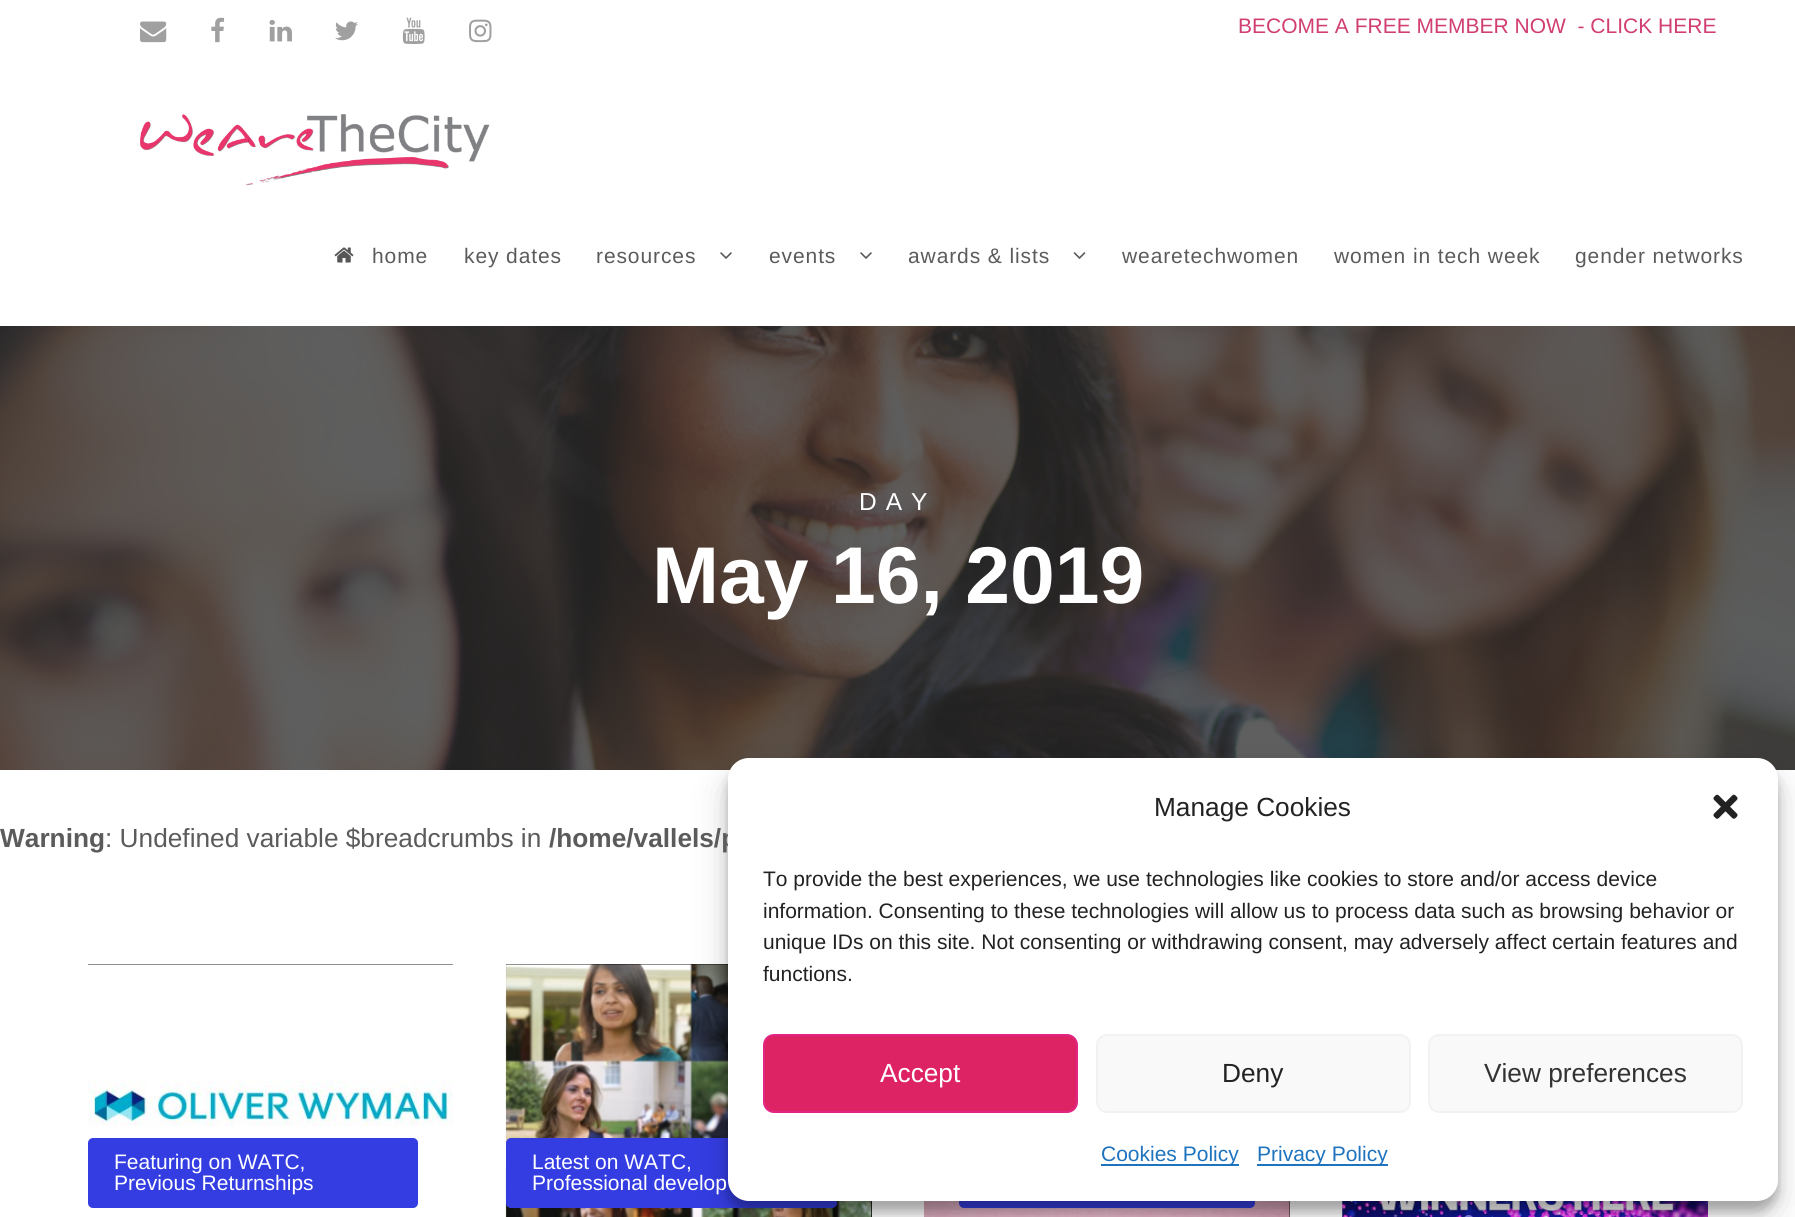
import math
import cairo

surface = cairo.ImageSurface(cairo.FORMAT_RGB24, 1795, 1217)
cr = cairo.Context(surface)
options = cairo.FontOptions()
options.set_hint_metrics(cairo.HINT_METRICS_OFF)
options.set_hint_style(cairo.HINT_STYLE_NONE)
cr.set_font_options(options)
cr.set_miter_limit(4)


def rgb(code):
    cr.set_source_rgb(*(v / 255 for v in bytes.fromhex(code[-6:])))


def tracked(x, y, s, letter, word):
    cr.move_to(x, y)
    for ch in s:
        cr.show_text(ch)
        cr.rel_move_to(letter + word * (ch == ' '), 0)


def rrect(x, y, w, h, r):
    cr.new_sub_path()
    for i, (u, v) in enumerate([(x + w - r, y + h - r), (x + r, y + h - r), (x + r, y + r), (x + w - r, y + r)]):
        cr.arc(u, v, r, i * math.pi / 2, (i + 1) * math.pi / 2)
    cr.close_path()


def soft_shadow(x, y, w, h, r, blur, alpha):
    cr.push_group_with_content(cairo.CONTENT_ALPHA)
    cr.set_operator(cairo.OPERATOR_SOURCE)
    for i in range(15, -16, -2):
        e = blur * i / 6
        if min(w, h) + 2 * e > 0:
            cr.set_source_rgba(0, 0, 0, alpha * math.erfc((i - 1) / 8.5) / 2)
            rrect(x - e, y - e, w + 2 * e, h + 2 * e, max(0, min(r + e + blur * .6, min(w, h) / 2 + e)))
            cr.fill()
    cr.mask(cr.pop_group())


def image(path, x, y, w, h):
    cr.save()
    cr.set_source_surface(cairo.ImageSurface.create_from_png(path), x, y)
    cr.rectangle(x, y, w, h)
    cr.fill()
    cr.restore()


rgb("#ffffff")
cr.paint()
image("img/1.png", 140, 21, 27, 22)
image("img/2.png", 211, 17, 14, 26)
image("img/3.png", 269, 20, 23, 22)
image("img/4.png", 335, 21, 23, 20)
image("img/5.png", 402, 17, 23, 27)
image("img/6.png", 469, 19, 23, 24)
image("img/7.png", 140, 114, 350, 72)
image("img/8.png", 334, 247, 20, 16)
image("img/9.png", 720, 252, 12, 7)
image("img/9.png", 860, 252, 12, 7)
image("img/10.png", 1073, 252, 13, 7)
image("img/11.png", 0, 326, 1795, 444)
rgb("#000000")
cr.rectangle(88, 964, 365, 1)
cr.fill()
image("img/12.png", 88, 964, 365, 253)
rgb("#343de2")
rrect(88, 1138, 330, 70, 5)
cr.fill()
rgb("#000000")
cr.rectangle(506, 964, 366, 253)
cr.fill()
image("img/13.png", 505, 964, 367, 253)
rgb("#343de2")
rrect(506, 1138, 331, 70, 5)
cr.fill()
rgb("#000000")
cr.rectangle(1289, 1201, 1, 16)
cr.fill()
image("img/14.png", 924, 1201, 366, 16)
rgb("#343de2")
rrect(959, 1159, 296, 49, 5)
cr.fill()
image("img/15.png", 1342, 1201, 366, 16)
rgb("#000000")
soft_shadow(728, 768, 1050, 443, 21, 5, 0.23)
soft_shadow(728, 775, 1050, 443, 21, 17.5, 0.19)
cr.select_font_face("Liberation Sans")
cr.set_font_size(21)
rgb("#d13e72")
cr.move_to(1238, 33)
cr.show_text("BECOME A FREE MEMBER NOW  - CLICK HERE")
rgb("#5b5b5b")
for x, y, s in [
    (372, 263, "home"),
    (464, 263, "key dates"),
    (596, 263, "resources"),
    (769, 263, "events"),
    (908, 263, "awards & lists"),
    (1122, 263, "wearetechwomen"),
    (1334, 263, "women in tech week"),
    (1575, 263, "gender networks"),
]:
    tracked(x, y, s, 0.9, 0)
cr.set_font_size(24.5)
rgb("#ffffff")
tracked(859, 510, "DAY", 9, 0)
cr.select_font_face("Liberation Sans", cairo.FONT_SLANT_NORMAL, cairo.FONT_WEIGHT_BOLD)
cr.set_font_size(80.5)
cr.move_to(652, 603)
cr.show_text("May 16, 2019")
cr.set_font_size(26.25)
rgb("#5b5b5b")
cr.move_to(0, 847)
cr.show_text("Warning")
cr.select_font_face("Liberation Sans")
cr.move_to(105, 847)
cr.show_text(": Undefined variable $breadcrumbs in")
cr.select_font_face("Liberation Sans", cairo.FONT_SLANT_NORMAL, cairo.FONT_WEIGHT_BOLD)
cr.move_to(549, 847)
cr.show_text("/home/vallels/p")
cr.select_font_face("Liberation Sans")
cr.set_font_size(21)
rgb("#ffffff")
for x, y, s in [
    (114, 1169, "Featuring on WATC,"),
    (114, 1190, "Previous Returnships"),
    (532, 1169, "Latest on WATC,"),
    (532, 1190, "Professional develop"),
]:
    cr.move_to(x, y)
    cr.show_text(s)
rrect(728, 758, 1050, 443, 21)
cr.fill()
cr.set_font_size(26.25)
rgb("#222222")
cr.move_to(1154, 816)
cr.show_text("Manage Cookies")
image("img/16.png", 1713, 794, 25, 25)
cr.set_font_size(21)
for x, y, s in [
    (763, 886, "To provide the best experiences, we use technologies like cookies to store and/or access device"),
    (763, 918, "information. Consenting to these technologies will allow us to process data such as browsing behavior or"),
    (763, 949, "unique IDs on this site. Not consenting or withdrawing consent, may adversely affect certain features and"),
    (763, 981, "functions."),
]:
    cr.move_to(x, y)
    cr.show_text(s)
rgb("#dd2364")
rrect(764, 1035, 313, 77, 10)
cr.fill_preserve()
rgb("#e22483")
cr.stroke()
cr.set_font_size(26.25)
rgb("#ffffff")
cr.move_to(880, 1082)
cr.show_text("Accept")
rgb("#f9f9f9")
rrect(1097, 1035, 313, 77, 10)
cr.fill_preserve()
rgb("#f2f2f2")
cr.stroke()
rgb("#222222")
cr.move_to(1222, 1082)
cr.show_text("Deny")
rgb("#f9f9f9")
rrect(1429, 1035, 313, 77, 10)
cr.fill_preserve()
rgb("#f2f2f2")
cr.stroke()
rgb("#333333")
cr.move_to(1484, 1082)
cr.show_text("View preferences")
rgb("#1e73be")
cr.rectangle(1101, 1164, 138, 2)
cr.fill()
cr.set_font_size(21)
cr.move_to(1101, 1161)
cr.show_text("Cookies Policy")
cr.rectangle(1257, 1164, 131, 2)
cr.fill()
cr.move_to(1257, 1161)
cr.show_text("Privacy Policy")
surface.write_to_png("page.png")
